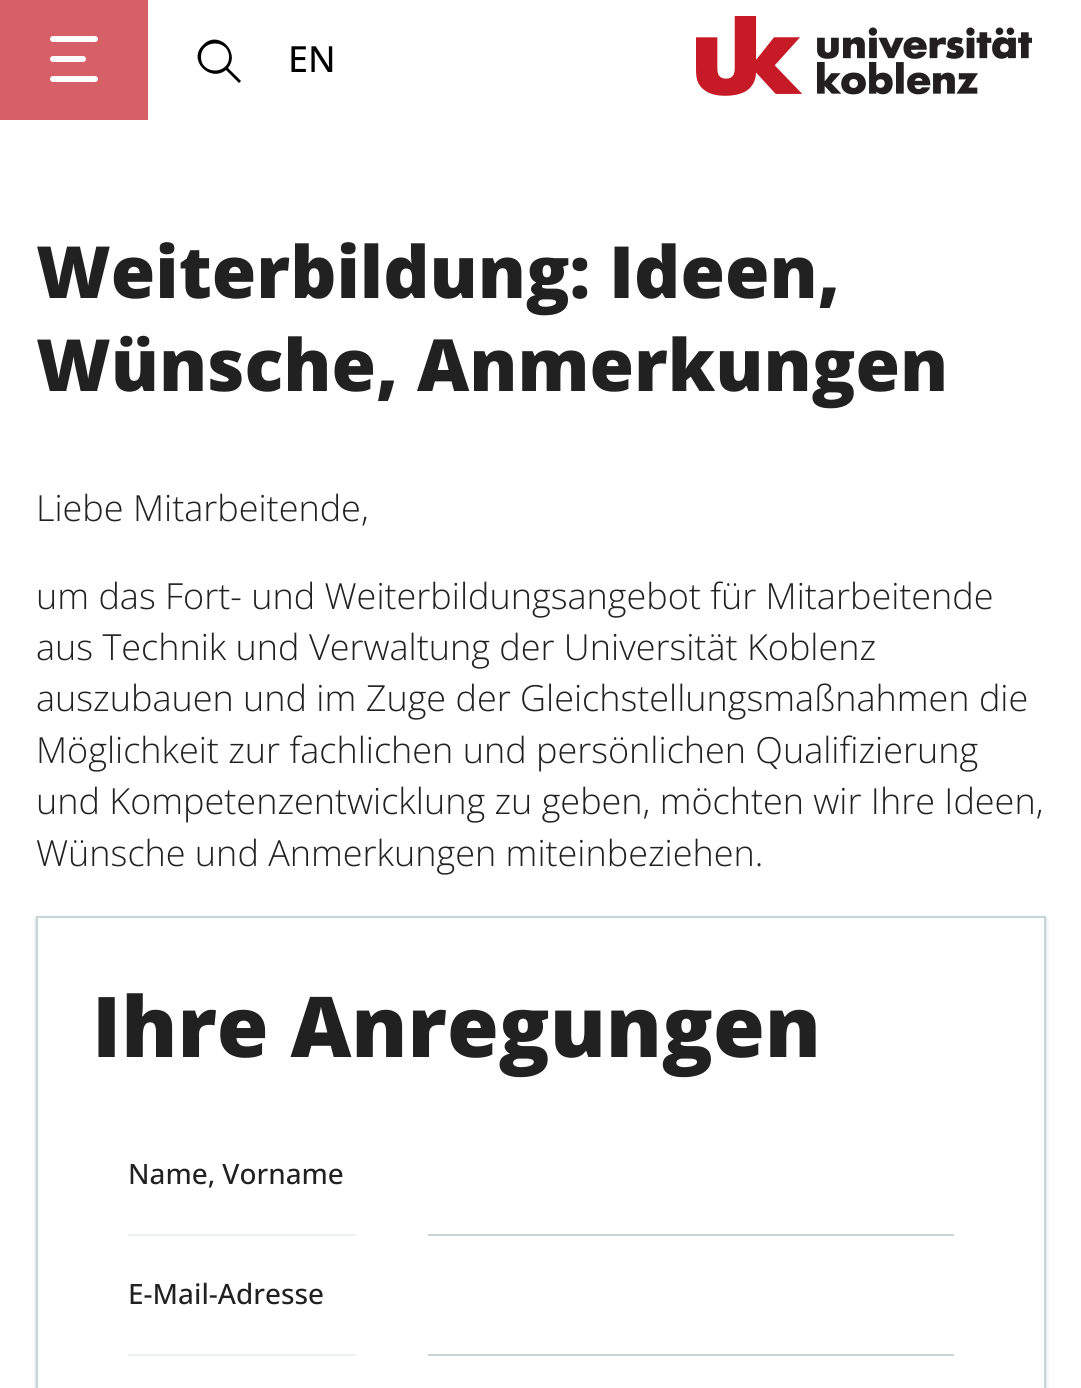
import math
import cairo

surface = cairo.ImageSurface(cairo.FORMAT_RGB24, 1081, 1388)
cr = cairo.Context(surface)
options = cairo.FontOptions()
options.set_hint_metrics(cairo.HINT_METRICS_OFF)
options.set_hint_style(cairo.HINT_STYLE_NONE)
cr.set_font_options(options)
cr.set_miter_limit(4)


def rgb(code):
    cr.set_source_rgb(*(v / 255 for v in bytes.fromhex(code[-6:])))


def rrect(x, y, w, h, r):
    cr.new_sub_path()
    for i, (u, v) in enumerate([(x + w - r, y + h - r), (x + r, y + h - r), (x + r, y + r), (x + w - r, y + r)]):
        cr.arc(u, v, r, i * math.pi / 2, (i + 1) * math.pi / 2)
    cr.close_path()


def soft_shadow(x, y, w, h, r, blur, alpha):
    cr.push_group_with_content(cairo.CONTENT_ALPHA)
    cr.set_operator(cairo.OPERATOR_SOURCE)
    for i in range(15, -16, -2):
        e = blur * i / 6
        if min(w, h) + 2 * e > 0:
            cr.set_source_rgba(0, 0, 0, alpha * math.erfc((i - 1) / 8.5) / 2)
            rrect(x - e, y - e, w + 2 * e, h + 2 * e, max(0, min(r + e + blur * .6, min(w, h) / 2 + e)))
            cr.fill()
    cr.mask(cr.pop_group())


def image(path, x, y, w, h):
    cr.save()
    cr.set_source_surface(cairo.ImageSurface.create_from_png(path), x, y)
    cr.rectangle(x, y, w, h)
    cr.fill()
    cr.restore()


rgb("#ffffff")
cr.paint()
rgb("#d75f68")
cr.rectangle(0, 0, 148, 120)
cr.fill()
rgb("#ffffff")
rrect(50, 56, 36, 6, 3)
cr.fill()
rrect(50, 36, 48, 6, 3)
cr.fill()
rrect(50, 76, 48, 6, 3)
cr.fill()
rgb("#000000")
cr.set_fill_rule(cairo.FILL_RULE_EVEN_ODD)
cr.new_path()
cr.move_to(201, 57)
cr.curve_to(201, 39, 229, 39, 229, 57)
cr.curve_to(229, 75, 201, 75, 201, 57)
cr.close_path()
cr.move_to(241, 81)
cr.line_to(228, 68)
cr.curve_to(241, 52, 218, 29, 203, 45)
cr.curve_to(187, 60, 210, 83, 226, 70)
cr.line_to(239, 83)
cr.close_path()
cr.fill()
image("img/1.png", 696, 16, 336, 80)
cr.save()
cr.new_path()
cr.move_to(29, 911)
cr.line_to(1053, 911)
cr.line_to(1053, 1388)
cr.line_to(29, 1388)
cr.close_path()
cr.move_to(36, 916)
cr.line_to(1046, 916)
cr.line_to(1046, 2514)
cr.line_to(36, 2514)
cr.close_path()
cr.clip()
rgb("#c7d5d8")
soft_shadow(36, 918, 1010, 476, 0, 2, 1)
cr.restore()
cr.rectangle(37, 917, 1008, 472)
rgb("#c7d5d8")
cr.stroke()
for x, y, w, h, color in [
    (128, 1234, 228, 2, "#edf1f2"),
    (428, 1234, 526, 2, "#c7d5d8"),
    (128, 1354, 228, 2, "#edf1f2"),
    (428, 1354, 526, 2, "#c7d5d8"),
]:
    rgb(color)
    cr.rectangle(x, y, w, h)
    cr.fill()
cr.select_font_face("Open Sans Medium")
cr.set_font_size(36)
rgb("#000000")
cr.move_to(288, 72)
cr.show_text("EN")
cr.select_font_face("Open Sans ExtraBold")
cr.set_font_size(72)
rgb("#212121")
cr.move_to(36, 298)
cr.show_text("Weiterbildung: Ideen,")
cr.move_to(36, 391)
cr.show_text("Wünsche, Anmerkungen")
cr.select_font_face("Open Sans Light")
cr.set_font_size(36)
for x, y, s in [
    (36, 521, "Liebe Mitarbeitende,"),
    (36, 609, "um das Fort- und Weiterbildungsangebot für Mitarbeitende"),
    (36, 660, "aus Technik und Verwaltung der Universität Koblenz"),
    (36, 711, "auszubauen und im Zuge der Gleichstellungsmaßnahmen die"),
    (36, 763, "Möglichkeit zur fachlichen und persönlichen Qualifizierung"),
    (36, 814, "und Kompetenzentwicklung zu geben, möchten wir Ihre Ideen,"),
    (36, 866, "Wünsche und Anmerkungen miteinbeziehen."),
]:
    cr.move_to(x, y)
    cr.show_text(s)
cr.select_font_face("Open Sans ExtraBold")
cr.set_font_size(83.9)
cr.move_to(92, 1057)
cr.show_text("Ihre Anregungen")
cr.select_font_face("Open Sans Medium")
cr.set_font_size(28)
cr.move_to(128, 1184)
cr.show_text("Name, Vorname")
cr.move_to(128, 1304)
cr.show_text("E-Mail-Adresse")
surface.write_to_png("page.png")
